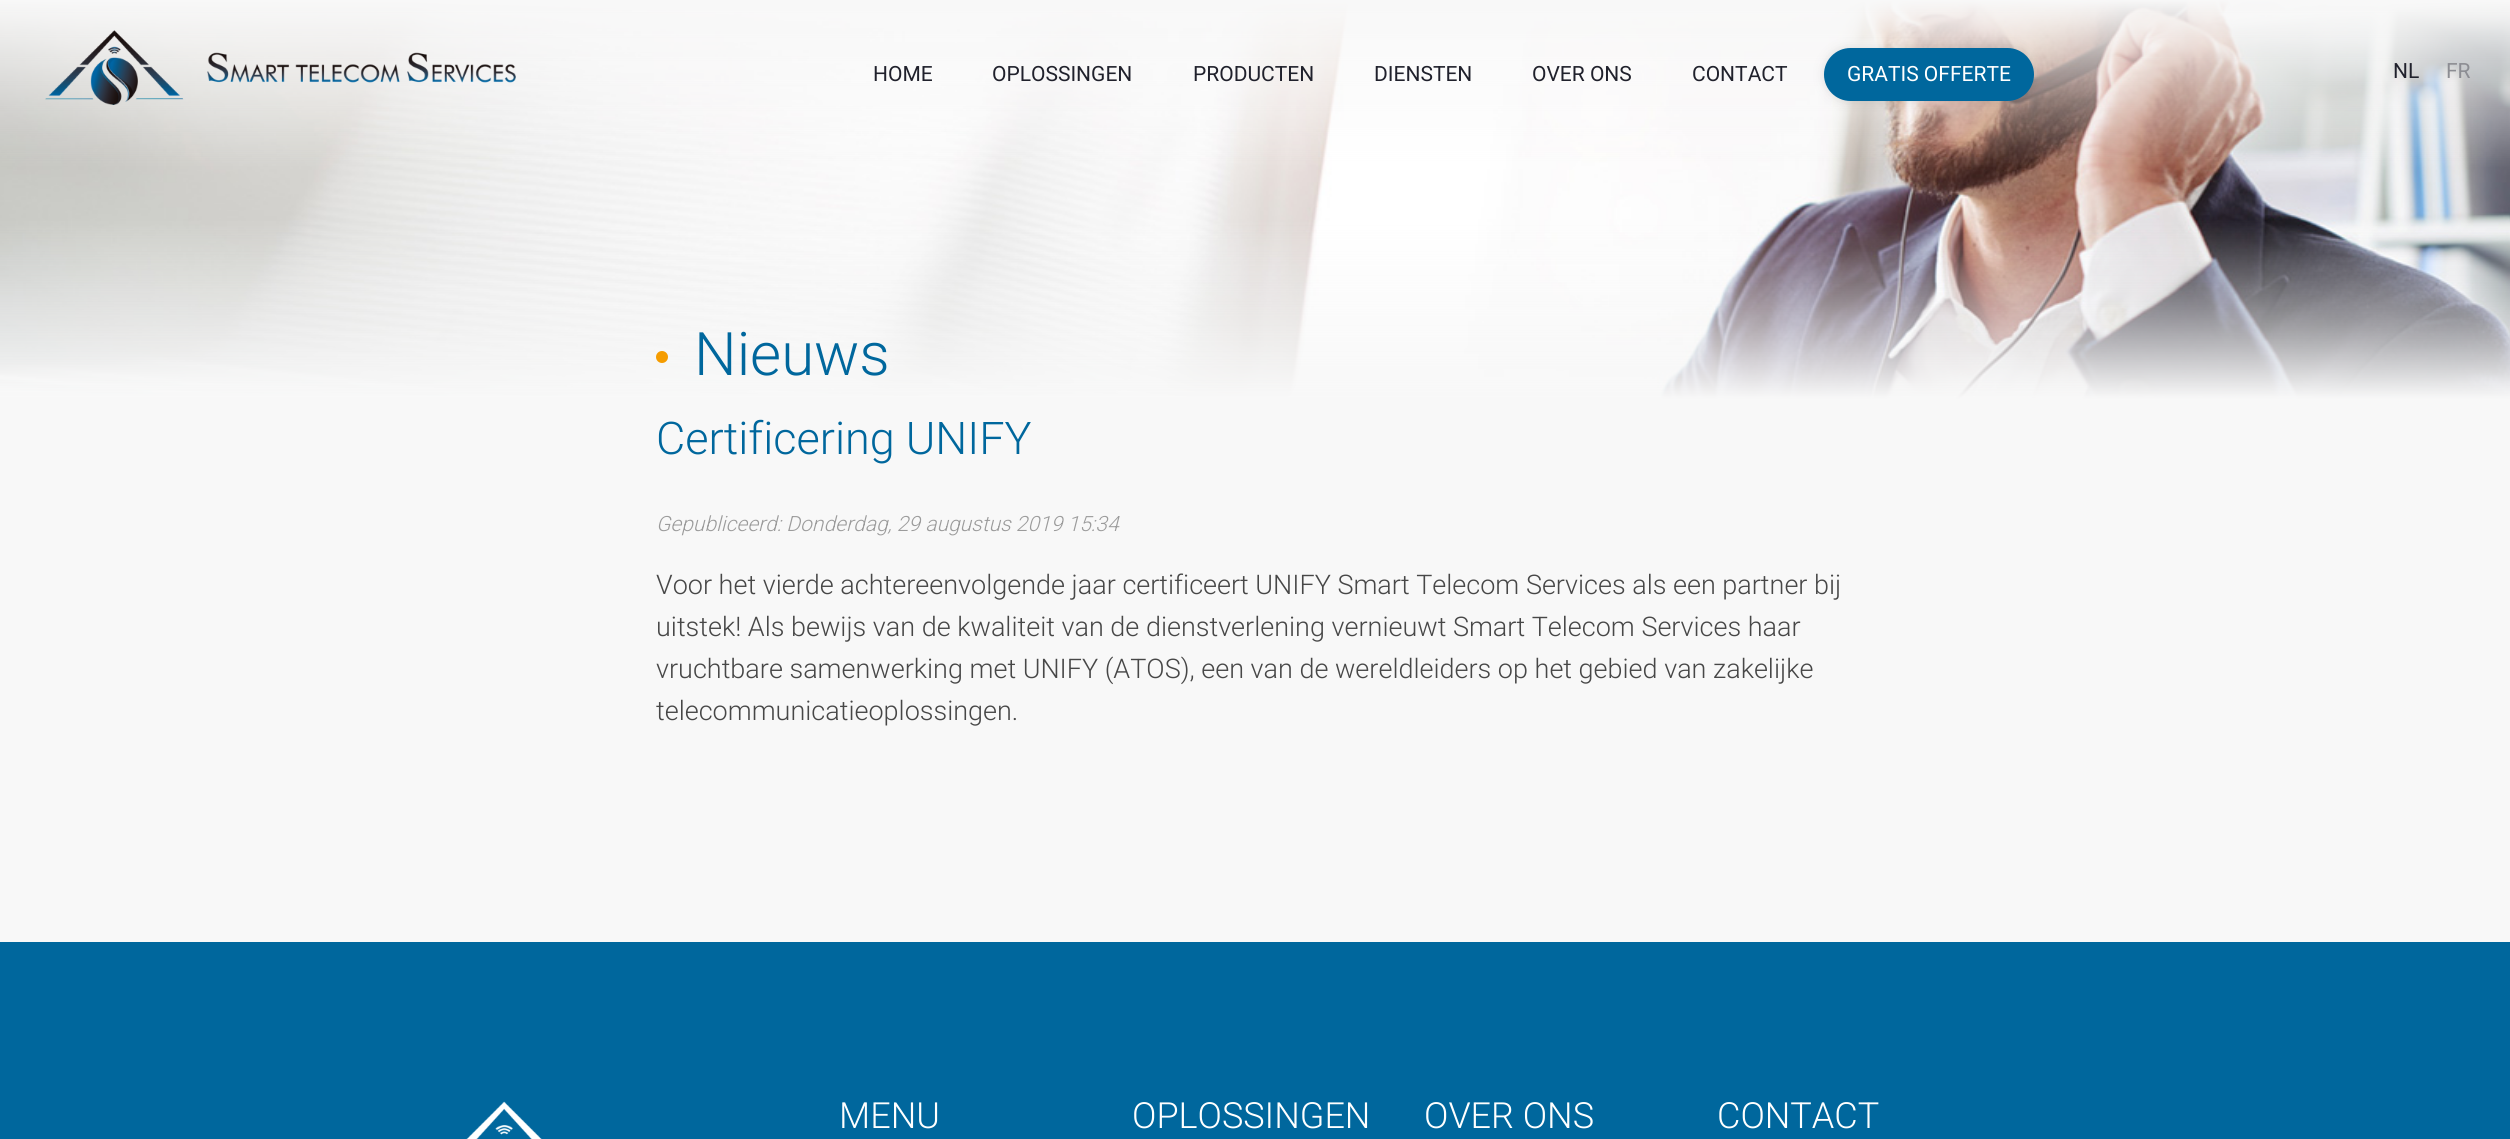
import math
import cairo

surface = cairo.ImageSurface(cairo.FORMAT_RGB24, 2510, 1139)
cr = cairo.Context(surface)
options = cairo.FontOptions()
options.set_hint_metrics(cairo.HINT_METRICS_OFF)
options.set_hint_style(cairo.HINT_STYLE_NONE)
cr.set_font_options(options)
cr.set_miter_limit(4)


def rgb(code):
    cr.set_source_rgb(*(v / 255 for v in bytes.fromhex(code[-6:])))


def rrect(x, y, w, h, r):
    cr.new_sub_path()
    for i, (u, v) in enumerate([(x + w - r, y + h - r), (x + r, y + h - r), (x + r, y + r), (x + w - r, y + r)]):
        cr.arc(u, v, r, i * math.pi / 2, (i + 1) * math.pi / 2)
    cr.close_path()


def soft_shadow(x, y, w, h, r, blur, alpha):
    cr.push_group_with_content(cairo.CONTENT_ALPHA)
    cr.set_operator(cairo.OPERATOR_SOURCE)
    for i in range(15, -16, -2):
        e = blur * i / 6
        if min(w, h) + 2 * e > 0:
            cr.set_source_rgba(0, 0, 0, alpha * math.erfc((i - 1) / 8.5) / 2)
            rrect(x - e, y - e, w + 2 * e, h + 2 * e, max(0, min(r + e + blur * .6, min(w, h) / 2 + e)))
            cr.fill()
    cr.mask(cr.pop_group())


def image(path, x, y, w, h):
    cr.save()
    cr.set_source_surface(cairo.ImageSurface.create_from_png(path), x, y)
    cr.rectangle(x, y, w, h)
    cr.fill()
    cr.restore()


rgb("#f8f8f8")
cr.paint()
image("img/1.png", 0, 0, 2510, 399)
image("img/2.png", 45, 30, 471, 75)
rgb("#000000")
soft_shadow(1824, 48, 210, 53, 26.5, 7.5, 0.07)
soft_shadow(1824, 48, 210, 53, 26.5, 3, 0.05)
rgb("#00679d")
rrect(1824, 48, 210, 53, 26.5)
cr.fill()
rgb("#f59c00")
cr.arc(662, 357, 6, 0, 2 * math.pi)
cr.fill()
rgb("#00679d")
cr.rectangle(0, 942, 2510, 197)
cr.fill()
image("img/3.png", 466, 1101, 76, 38)
cr.select_font_face("Roboto")
cr.set_font_size(21)
rgb("#20212c")
for x, y, s in [
    (873, 81, "HOME"),
    (992, 81, "OPLOSSINGEN"),
    (1193, 81, "PRODUCTEN"),
    (1374, 81, "DIENSTEN"),
    (1532, 81, "OVER ONS"),
    (1692, 81, "CONTACT"),
]:
    cr.move_to(x, y)
    cr.show_text(s)
rgb("#ffffff")
cr.move_to(1847, 81)
cr.show_text("GRATIS OFFERTE")
rgb("#20212c")
cr.move_to(2393, 78)
cr.show_text("NL")
rgb("#8c8d93")
cr.move_to(2446, 78)
cr.show_text("FR")
cr.select_font_face("Roboto Light")
cr.set_font_size(60)
rgb("#00679d")
cr.move_to(694, 375)
cr.show_text("Nieuws")
cr.set_font_size(45)
cr.move_to(656, 454)
cr.show_text("Certificering UNIFY")
cr.select_font_face("Roboto Light", cairo.FONT_SLANT_ITALIC)
cr.set_font_size(21)
rgb("#9b9b9b")
cr.move_to(656, 531)
cr.show_text("Gepubliceerd: Donderdag, 29 augustus 2019 15:34")
cr.select_font_face("Roboto Light")
cr.set_font_size(27)
rgb("#474747")
for x, y, s in [
    (656, 594, "Voor het vierde achtereenvolgende jaar certificeert UNIFY Smart Telecom Services als een partner bij"),
    (656, 636, "uitstek! Als bewijs van de kwaliteit van de dienstverlening vernieuwt Smart Telecom Services haar"),
    (656, 678, "vruchtbare samenwerking met UNIFY (ATOS), een van de wereldleiders op het gebied van zakelijke"),
    (656, 720, "telecommunicatieoplossingen."),
]:
    cr.move_to(x, y)
    cr.show_text(s)
cr.set_font_size(36)
rgb("#ffffff")
for x, y, s in [
    (839, 1128, "MENU"),
    (1132, 1128, "OPLOSSINGEN"),
    (1424, 1128, "OVER ONS"),
    (1717, 1128, "CONTACT"),
]:
    cr.move_to(x, y)
    cr.show_text(s)
surface.write_to_png("page.png")
